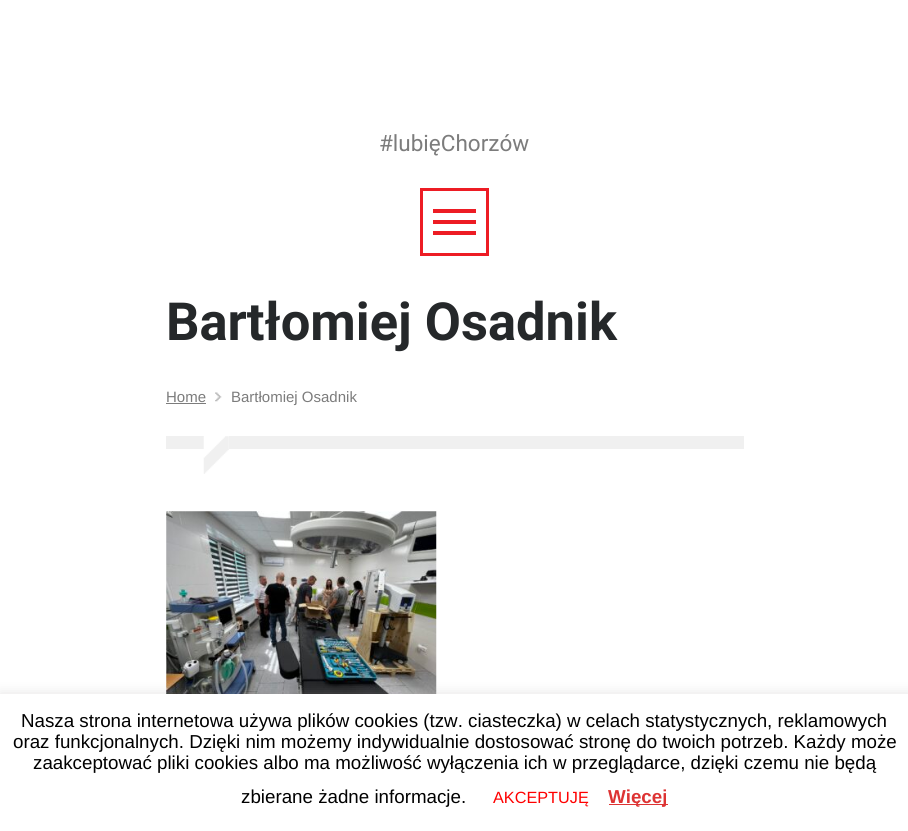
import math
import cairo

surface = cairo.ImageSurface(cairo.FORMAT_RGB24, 908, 831)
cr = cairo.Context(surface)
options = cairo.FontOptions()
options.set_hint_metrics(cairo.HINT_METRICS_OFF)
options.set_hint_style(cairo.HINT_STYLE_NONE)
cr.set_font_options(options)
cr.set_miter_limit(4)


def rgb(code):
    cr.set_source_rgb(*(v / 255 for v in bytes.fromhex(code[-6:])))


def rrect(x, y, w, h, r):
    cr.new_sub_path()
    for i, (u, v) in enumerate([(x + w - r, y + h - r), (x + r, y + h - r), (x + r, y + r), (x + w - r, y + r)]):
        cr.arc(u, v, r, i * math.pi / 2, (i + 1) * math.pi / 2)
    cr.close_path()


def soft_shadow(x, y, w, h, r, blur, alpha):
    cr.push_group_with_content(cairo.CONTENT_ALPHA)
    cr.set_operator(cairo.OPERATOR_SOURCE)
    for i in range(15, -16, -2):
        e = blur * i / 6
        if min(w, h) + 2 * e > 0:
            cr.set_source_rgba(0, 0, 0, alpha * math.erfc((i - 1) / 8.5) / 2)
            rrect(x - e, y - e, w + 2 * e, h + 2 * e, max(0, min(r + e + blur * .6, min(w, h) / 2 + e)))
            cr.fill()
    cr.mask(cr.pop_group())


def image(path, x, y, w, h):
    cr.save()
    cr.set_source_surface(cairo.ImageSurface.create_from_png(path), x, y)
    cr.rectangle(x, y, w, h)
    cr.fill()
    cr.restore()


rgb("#ffffff")
cr.paint()
cr.rectangle(421.5, 189.5, 66, 65)
rgb("#ed1c24")
cr.set_line_width(3)
cr.stroke()
for x, y, w, h, color in [
    (433, 209, 43, 4, "#ed1c24"),
    (433, 220, 43, 4, "#ed1c24"),
    (433, 231, 43, 4, "#ed1c24"),
    (166, 403, 40, 1, "#7c7c7c"),
]:
    rgb(color)
    cr.rectangle(x, y, w, h)
    cr.fill()
image("img/1.png", 215, 392, 7, 10)
rgb("#f0f0f0")
cr.rectangle(166, 436, 38, 13)
cr.fill()
image("img/2.png", 203, 436, 26, 38)
cr.rectangle(229, 436, 515, 13)
cr.fill()
image("img/3.png", 166, 511, 271, 183)
rgb("#acabab")
soft_shadow(0, 693, 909, 137, 0, 6, 0.3)
rgb("#ffffff")
cr.rectangle(0, 694, 908, 137)
cr.fill()
rgb("#dd3333")
cr.rectangle(609, 804, 59, 1)
cr.fill()
cr.select_font_face("Roboto")
cr.set_font_size(22.5)
rgb("#7c7c7c")
cr.move_to(379, 151)
cr.show_text("#lubięChorzów")
cr.select_font_face("Roboto", cairo.FONT_SLANT_NORMAL, cairo.FONT_WEIGHT_BOLD)
cr.set_font_size(52.5)
rgb("#25282a")
cr.move_to(166, 340)
cr.show_text("Bartłomiej Osadnik")
cr.select_font_face("Liberation Sans")
cr.set_font_size(15)
rgb("#7c7c7c")
cr.move_to(166, 402)
cr.show_text("Home")
cr.move_to(231, 402)
cr.show_text("Bartłomiej Osadnik")
cr.set_font_size(18.75)
rgb("#000000")
for x, y, s in [
    (21, 727, "Nasza strona internetowa używa plików cookies (tzw. ciasteczka) w celach statystycznych, reklamowych"),
    (13, 748, "oraz funkcjonalnych. Dzięki nim możemy indywidualnie dostosować stronę do twoich potrzeb. Każdy może"),
    (33, 769, "zaakceptować pliki cookies albo ma możliwość wyłączenia ich w przeglądarce, dzięki czemu nie będą"),
    (241, 803, "zbierane żadne informacje."),
]:
    cr.move_to(x, y)
    cr.show_text(s)
cr.set_font_size(16.25)
rgb("#ff0000")
cr.move_to(493, 803)
cr.show_text("AKCEPTUJĘ")
cr.select_font_face("Liberation Sans", cairo.FONT_SLANT_NORMAL, cairo.FONT_WEIGHT_BOLD)
cr.set_font_size(18.75)
rgb("#dd3333")
cr.move_to(608, 803)
cr.show_text("Więcej")
surface.write_to_png("page.png")
